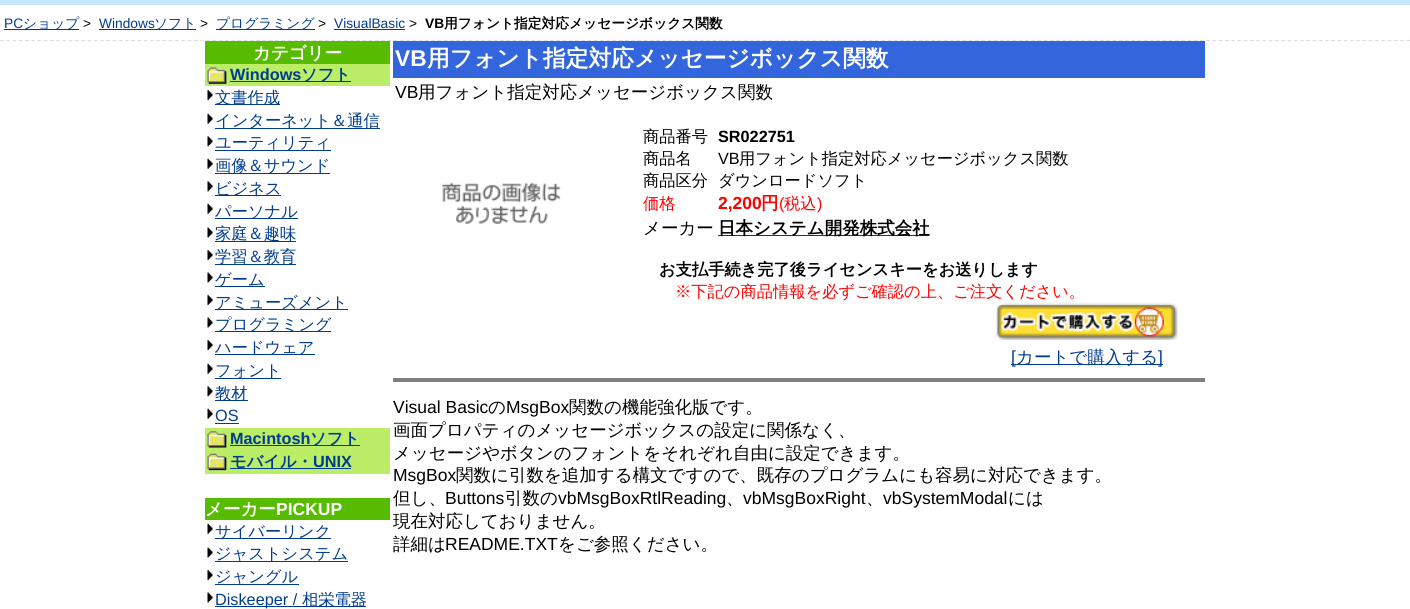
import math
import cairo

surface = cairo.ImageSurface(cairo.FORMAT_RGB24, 1410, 609)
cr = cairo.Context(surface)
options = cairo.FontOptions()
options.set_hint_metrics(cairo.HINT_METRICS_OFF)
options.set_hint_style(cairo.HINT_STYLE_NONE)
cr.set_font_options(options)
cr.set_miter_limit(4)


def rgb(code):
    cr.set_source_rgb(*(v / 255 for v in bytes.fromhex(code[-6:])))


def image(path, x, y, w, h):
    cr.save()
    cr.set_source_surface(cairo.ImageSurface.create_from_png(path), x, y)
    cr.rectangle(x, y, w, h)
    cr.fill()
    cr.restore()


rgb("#ffffff")
cr.paint()
rgb("#c7e6ff")
cr.rectangle(0, 0, 1410, 5)
cr.fill()
cr.new_path()
cr.move_to(0, 40.5)
cr.line_to(1410, 40.5)
rgb("#dddddd")
cr.set_line_width(1.2)
cr.set_dash([3.75, 2.5])
cr.stroke()
for x, y, w, h, color in [
    (4, 29, 75, 1, "#003c8e"),
    (99, 29, 97, 1, "#003c8e"),
    (216, 29, 99, 1, "#003c8e"),
    (334, 29, 71, 1, "#003c8e"),
    (205, 41, 185, 23, "#57bb00"),
    (205, 64, 185, 22, "#bbee66"),
]:
    rgb(color)
    cr.rectangle(x, y, w, h)
    cr.fill()
image("img/1.png", 207, 67, 20, 17)
rgb("#003c8e")
cr.rectangle(230, 81, 121, 1)
cr.fill()
image("img/2.png", 207, 89, 6, 12)
cr.rectangle(215, 104, 65, 1)
cr.fill()
image("img/3.png", 207, 113, 6, 11)
cr.rectangle(215, 128, 165, 1)
cr.fill()
image("img/4.png", 207, 136, 6, 11)
cr.rectangle(215, 150, 116, 1)
cr.fill()
image("img/3.png", 207, 158, 6, 11)
cr.rectangle(215, 173, 115, 1)
cr.fill()
image("img/4.png", 207, 181, 6, 11)
cr.rectangle(215, 195, 66, 1)
cr.fill()
image("img/3.png", 207, 203, 6, 11)
cr.rectangle(215, 218, 83, 1)
cr.fill()
image("img/5.png", 207, 227, 6, 11)
cr.rectangle(215, 241, 81, 1)
cr.fill()
image("img/2.png", 207, 249, 6, 12)
cr.rectangle(215, 264, 81, 1)
cr.fill()
image("img/5.png", 207, 272, 6, 11)
cr.rectangle(215, 286, 50, 1)
cr.fill()
image("img/2.png", 207, 294, 6, 12)
cr.rectangle(215, 309, 133, 1)
cr.fill()
image("img/5.png", 207, 317, 6, 11)
cr.rectangle(215, 331, 116, 1)
cr.fill()
image("img/2.png", 207, 339, 6, 12)
cr.rectangle(215, 354, 100, 1)
cr.fill()
image("img/3.png", 207, 363, 6, 11)
cr.rectangle(215, 378, 66, 1)
cr.fill()
image("img/4.png", 207, 386, 6, 11)
cr.rectangle(215, 400, 33, 1)
cr.fill()
image("img/3.png", 207, 408, 6, 11)
cr.rectangle(215, 423, 24, 1)
cr.fill()
rgb("#bbee66")
cr.rectangle(205, 428, 185, 46)
cr.fill()
image("img/6.png", 207, 431, 20, 17)
rgb("#003c8e")
cr.rectangle(230, 445, 130, 1)
cr.fill()
image("img/7.png", 207, 453, 20, 18)
cr.rectangle(230, 468, 121, 1)
cr.fill()
rgb("#57bb00")
cr.rectangle(205, 498, 185, 22)
cr.fill()
image("img/3.png", 207, 523, 6, 11)
rgb("#003c8e")
cr.rectangle(215, 538, 116, 1)
cr.fill()
image("img/8.png", 207, 547, 6, 11)
cr.rectangle(215, 561, 133, 1)
cr.fill()
image("img/2.png", 207, 569, 6, 12)
cr.rectangle(215, 584, 84, 1)
cr.fill()
image("img/5.png", 207, 592, 6, 11)
cr.rectangle(215, 606, 151, 1)
cr.fill()
rgb("#3366dd")
cr.rectangle(393, 41, 812, 37)
cr.fill()
image("img/9.png", 442, 182, 119, 42)
rgb("#003c8e")
cr.rectangle(718, 235, 211, 1)
cr.fill()
image("img/10.png", 996, 302, 182, 38)
cr.rectangle(1011, 364, 152, 1)
cr.fill()
rgb("#808080")
cr.rectangle(393, 378, 812, 4)
cr.fill()
cr.select_font_face("Liberation Sans")
cr.set_font_size(13.75)
rgb("#003c8e")
cr.move_to(4, 28)
cr.show_text("PC")
cr.select_font_face("WenQuanYi Zen Hei Medium")
cr.move_to(23, 28)
cr.show_text("ショップ")
cr.select_font_face("Liberation Sans")
rgb("#000000")
cr.move_to(83, 28)
cr.show_text(">")
rgb("#003c8e")
cr.move_to(99, 28)
cr.show_text("Windows")
cr.select_font_face("WenQuanYi Zen Hei Medium")
cr.move_to(154, 28)
cr.show_text("ソフト")
cr.select_font_face("Liberation Sans")
rgb("#000000")
cr.move_to(200, 28)
cr.show_text(">")
cr.select_font_face("WenQuanYi Zen Hei Medium")
rgb("#003c8e")
cr.move_to(216, 28)
cr.show_text("プログラミング")
cr.select_font_face("Liberation Sans")
rgb("#000000")
cr.move_to(318, 28)
cr.show_text(">")
rgb("#003c8e")
cr.move_to(334, 28)
cr.show_text("VisualBasic")
rgb("#000000")
cr.move_to(409, 28)
cr.show_text(">")
cr.select_font_face("Liberation Sans", cairo.FONT_SLANT_NORMAL, cairo.FONT_WEIGHT_BOLD)
cr.move_to(425, 28)
cr.show_text("VB")
cr.select_font_face("WenQuanYi Zen Hei", cairo.FONT_SLANT_NORMAL, cairo.FONT_WEIGHT_BOLD)
cr.move_to(444, 28)
cr.show_text("用フォント指定対応メッセージボックス関数")
cr.set_font_size(17.5)
rgb("#ffffff")
cr.move_to(253, 59)
cr.show_text("カテゴリー")
cr.select_font_face("Liberation Sans", cairo.FONT_SLANT_NORMAL, cairo.FONT_WEIGHT_BOLD)
cr.set_font_size(16.25)
rgb("#003c8e")
cr.move_to(230, 80)
cr.show_text("Windows")
cr.select_font_face("WenQuanYi Zen Hei", cairo.FONT_SLANT_NORMAL, cairo.FONT_WEIGHT_BOLD)
cr.move_to(301, 80)
cr.show_text("ソフト")
cr.select_font_face("WenQuanYi Zen Hei Medium")
for x, y, s in [
    (215, 103, "文書作成"),
    (215, 126, "インターネット＆通信"),
    (215, 148, "ユーティリティ"),
    (215, 171, "画像＆サウンド"),
    (215, 194, "ビジネス"),
    (215, 217, "パーソナル"),
    (215, 239, "家庭＆趣味"),
    (215, 262, "学習＆教育"),
    (215, 285, "ゲーム"),
    (215, 308, "アミューズメント"),
    (215, 330, "プログラミング"),
    (215, 353, "ハードウェア"),
    (215, 376, "フォント"),
    (215, 399, "教材"),
]:
    cr.move_to(x, y)
    cr.show_text(s)
cr.select_font_face("Liberation Sans")
cr.move_to(215, 421)
cr.show_text("OS")
cr.select_font_face("Liberation Sans", cairo.FONT_SLANT_NORMAL, cairo.FONT_WEIGHT_BOLD)
cr.move_to(230, 444)
cr.show_text("Macintosh")
cr.select_font_face("WenQuanYi Zen Hei", cairo.FONT_SLANT_NORMAL, cairo.FONT_WEIGHT_BOLD)
cr.move_to(310, 444)
cr.show_text("ソフト")
cr.move_to(230, 467)
cr.show_text("モバイル・")
cr.select_font_face("Liberation Sans", cairo.FONT_SLANT_NORMAL, cairo.FONT_WEIGHT_BOLD)
cr.move_to(313, 467)
cr.show_text("UNIX")
cr.select_font_face("WenQuanYi Zen Hei", cairo.FONT_SLANT_NORMAL, cairo.FONT_WEIGHT_BOLD)
cr.set_font_size(17.5)
rgb("#ffffff")
cr.move_to(205, 515)
cr.show_text("メーカー")
cr.select_font_face("Liberation Sans", cairo.FONT_SLANT_NORMAL, cairo.FONT_WEIGHT_BOLD)
cr.move_to(276, 515)
cr.show_text("PICKUP")
cr.select_font_face("WenQuanYi Zen Hei Medium")
cr.set_font_size(16.25)
rgb("#003c8e")
for x, y, s in [
    (215, 537, "サイバーリンク"),
    (215, 559, "ジャストシステム"),
    (215, 582, "ジャングル"),
]:
    cr.move_to(x, y)
    cr.show_text(s)
cr.select_font_face("Liberation Sans")
cr.move_to(215, 605)
cr.show_text("Diskeeper /")
cr.select_font_face("WenQuanYi Zen Hei Medium")
cr.move_to(302, 605)
cr.show_text("相栄電器")
cr.select_font_face("Liberation Sans", cairo.FONT_SLANT_NORMAL, cairo.FONT_WEIGHT_BOLD)
cr.set_font_size(22.75)
rgb("#ffffff")
cr.move_to(395, 66)
cr.show_text("VB")
cr.select_font_face("WenQuanYi Zen Hei", cairo.FONT_SLANT_NORMAL, cairo.FONT_WEIGHT_BOLD)
cr.move_to(427, 66)
cr.show_text("用フォント指定対応メッセージボックス関数")
cr.select_font_face("Liberation Sans")
cr.set_font_size(17.5)
rgb("#000000")
cr.move_to(395, 98)
cr.show_text("VB")
cr.select_font_face("WenQuanYi Zen Hei Medium")
cr.move_to(418, 98)
cr.show_text("用フォント指定対応メッセージボックス関数")
cr.set_font_size(16.25)
cr.move_to(643, 142)
cr.show_text("商品番号")
cr.select_font_face("Liberation Sans", cairo.FONT_SLANT_NORMAL, cairo.FONT_WEIGHT_BOLD)
cr.move_to(718, 142)
cr.show_text("SR022751")
cr.select_font_face("WenQuanYi Zen Hei Medium")
cr.move_to(643, 164)
cr.show_text("商品名")
cr.select_font_face("Liberation Sans")
cr.move_to(718, 164)
cr.show_text("VB")
cr.select_font_face("WenQuanYi Zen Hei Medium")
for x, y, s in [
    (739, 164, "用フォント指定対応メッセージボックス関数"),
    (643, 186, "商品区分"),
    (718, 186, "ダウンロードソフト"),
]:
    cr.move_to(x, y)
    cr.show_text(s)
rgb("#ff0000")
cr.move_to(643, 209)
cr.show_text("価格")
cr.select_font_face("Liberation Sans", cairo.FONT_SLANT_NORMAL, cairo.FONT_WEIGHT_BOLD)
cr.set_font_size(17.5)
cr.move_to(718, 209)
cr.show_text("2,200")
cr.select_font_face("WenQuanYi Zen Hei", cairo.FONT_SLANT_NORMAL, cairo.FONT_WEIGHT_BOLD)
cr.move_to(761, 209)
cr.show_text("円")
cr.select_font_face("Liberation Sans")
cr.set_font_size(16.25)
cr.move_to(779, 209)
cr.show_text("(")
cr.select_font_face("WenQuanYi Zen Hei Medium")
cr.move_to(784, 209)
cr.show_text("税込")
cr.select_font_face("Liberation Sans")
cr.move_to(817, 209)
cr.show_text(")")
cr.select_font_face("WenQuanYi Zen Hei Medium")
cr.set_font_size(17.5)
rgb("#000000")
cr.move_to(643, 234)
cr.show_text("メーカー")
cr.select_font_face("WenQuanYi Zen Hei", cairo.FONT_SLANT_NORMAL, cairo.FONT_WEIGHT_BOLD)
cr.move_to(718, 234)
cr.show_text("日本システム開発株式会社")
cr.set_font_size(16.25)
cr.move_to(659, 275)
cr.show_text("お支払手続き完了後ライセンスキーをお送りします")
cr.select_font_face("WenQuanYi Zen Hei Medium")
rgb("#ff0000")
cr.move_to(675, 297)
cr.show_text("※下記の商品情報を必ずご確認の上、ご注文ください。")
cr.select_font_face("Liberation Sans")
cr.set_font_size(17.5)
rgb("#003c8e")
cr.move_to(1011, 363)
cr.show_text("[")
cr.select_font_face("WenQuanYi Zen Hei Medium")
cr.move_to(1016, 363)
cr.show_text("カートで購入する")
cr.select_font_face("Liberation Sans")
cr.move_to(1158, 363)
cr.show_text("]")
rgb("#000000")
cr.move_to(393, 413)
cr.show_text("Visual Basic")
cr.select_font_face("WenQuanYi Zen Hei Medium")
cr.move_to(488, 413)
cr.show_text("の")
cr.select_font_face("Liberation Sans")
cr.move_to(506, 413)
cr.show_text("MsgBox")
cr.select_font_face("WenQuanYi Zen Hei Medium")
for x, y, s in [
    (569, 413, "関数の機能強化版です。"),
    (393, 436, "画面プロパティのメッセージボックスの設定に関係なく、"),
    (393, 459, "メッセージやボタンのフォントをそれぞれ自由に設定できます。"),
]:
    cr.move_to(x, y)
    cr.show_text(s)
cr.select_font_face("Liberation Sans")
cr.move_to(393, 481)
cr.show_text("MsgBox")
cr.select_font_face("WenQuanYi Zen Hei Medium")
cr.move_to(456, 481)
cr.show_text("関数に引数を追加する構文ですので、既存のプログラムにも容易に対応できます。")
cr.move_to(393, 504)
cr.show_text("但し、")
cr.select_font_face("Liberation Sans")
cr.move_to(445, 504)
cr.show_text("Buttons")
cr.select_font_face("WenQuanYi Zen Hei Medium")
cr.move_to(505, 504)
cr.show_text("引数の")
cr.select_font_face("Liberation Sans")
cr.move_to(558, 504)
cr.show_text("vbMsgBoxRtlReading")
cr.select_font_face("WenQuanYi Zen Hei Medium")
cr.move_to(726, 504)
cr.show_text("、")
cr.select_font_face("Liberation Sans")
cr.move_to(743, 504)
cr.show_text("vbMsgBoxRight")
cr.select_font_face("WenQuanYi Zen Hei Medium")
cr.move_to(866, 504)
cr.show_text("、")
cr.select_font_face("Liberation Sans")
cr.move_to(883, 504)
cr.show_text("vbSystemModal")
cr.select_font_face("WenQuanYi Zen Hei Medium")
for x, y, s in [
    (1008, 504, "には"),
    (393, 527, "現在対応しておりません。"),
    (393, 550, "詳細は"),
]:
    cr.move_to(x, y)
    cr.show_text(s)
cr.select_font_face("Liberation Sans")
cr.move_to(445, 550)
cr.show_text("README.TXT")
cr.select_font_face("WenQuanYi Zen Hei Medium")
cr.move_to(558, 550)
cr.show_text("をご参照ください。")
surface.write_to_png("page.png")
